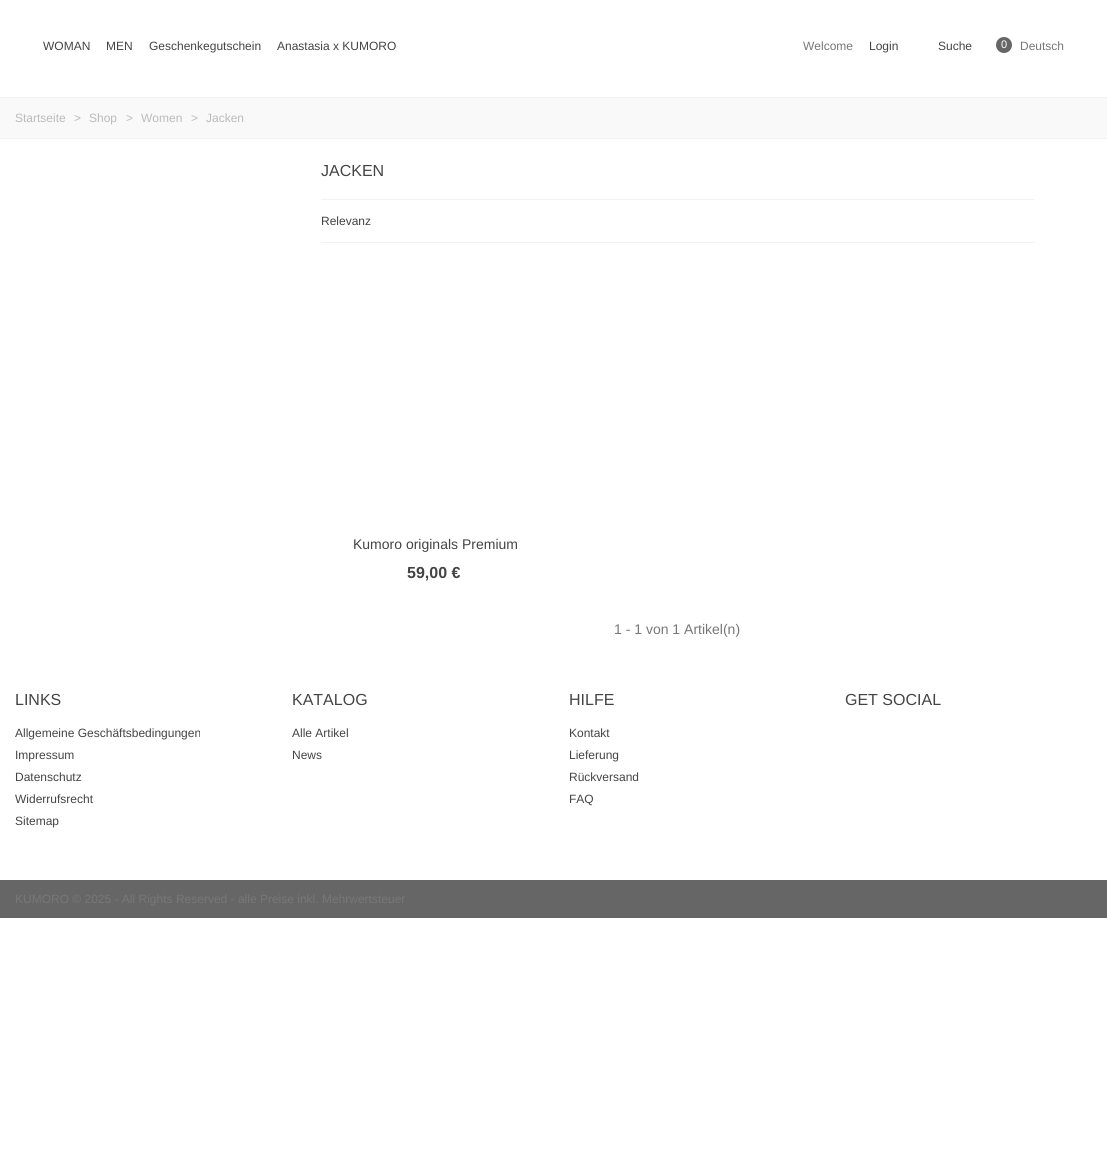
import math
import cairo

surface = cairo.ImageSurface(cairo.FORMAT_RGB24, 1107, 1170)
cr = cairo.Context(surface)
options = cairo.FontOptions()
options.set_hint_metrics(cairo.HINT_METRICS_OFF)
options.set_hint_style(cairo.HINT_STYLE_NONE)
cr.set_font_options(options)
cr.set_miter_limit(4)


def rgb(code):
    cr.set_source_rgb(*(v / 255 for v in bytes.fromhex(code[-6:])))


rgb("#ffffff")
cr.paint()
rgb("#666666")
cr.arc(1004, 45, 8, 0, 2 * math.pi)
cr.fill()
for x, y, w, h, color in [
    (0, 98, 1107, 40, "#f9f9f9"),
    (0, 97, 1107, 1, "#f3f3f3"),
    (0, 138, 1107, 1, "#f3f3f3"),
    (321, 199, 714, 1, "#f2f2f2"),
    (321, 242, 714, 1, "#f2f2f2"),
    (0, 880, 1107, 38, "#666666"),
]:
    rgb(color)
    cr.rectangle(x, y, w, h)
    cr.fill()
cr.select_font_face("Liberation Sans")
cr.set_font_size(12)
rgb("#444444")
for x, y, s in [
    (43, 50, "WOMAN"),
    (106, 50, "MEN"),
    (149, 50, "Geschenkegutschein"),
    (277, 50, "Anastasia x KUMORO"),
]:
    cr.move_to(x, y)
    cr.show_text(s)
rgb("#777777")
cr.move_to(803, 50)
cr.show_text("Welcome")
rgb("#444444")
cr.move_to(869, 50)
cr.show_text("Login")
cr.move_to(938, 50)
cr.show_text("Suche")
cr.set_font_size(11)
rgb("#ffffff")
cr.move_to(1001, 48)
cr.show_text("0")
cr.set_font_size(12)
rgb("#777777")
cr.move_to(1020, 50)
cr.show_text("Deutsch")
rgb("#bbbbbb")
for x, y, s in [
    (15, 122, "Startseite"),
    (74, 122, ">"),
    (89, 122, "Shop"),
    (126, 122, ">"),
    (141, 122, "Women"),
    (191, 122, ">"),
    (206, 122, "Jacken"),
]:
    cr.move_to(x, y)
    cr.show_text(s)
cr.set_font_size(16)
rgb("#444444")
cr.move_to(321, 176)
cr.show_text("JACKEN")
cr.set_font_size(12)
cr.move_to(321, 225)
cr.show_text("Relevanz")
cr.set_font_size(14)
cr.move_to(353, 549)
cr.show_text("Kumoro originals Premium")
cr.select_font_face("Liberation Sans", cairo.FONT_SLANT_NORMAL, cairo.FONT_WEIGHT_BOLD)
cr.set_font_size(16)
cr.move_to(407, 578)
cr.show_text("59,00 €")
cr.select_font_face("Liberation Sans")
cr.set_font_size(14)
rgb("#777777")
cr.move_to(614, 634)
cr.show_text("1 - 1 von 1 Artikel(n)")
cr.set_font_size(16)
rgb("#444444")
cr.move_to(15, 705)
cr.show_text("LINKS")
cr.set_font_size(12)
for x, y, s in [
    (15, 737, "Allgemeine Geschäftsbedingungen"),
    (15, 759, "Impressum"),
    (15, 781, "Datenschutz"),
    (15, 803, "Widerrufsrecht"),
    (15, 825, "Sitemap"),
]:
    cr.move_to(x, y)
    cr.show_text(s)
cr.set_font_size(16)
cr.move_to(292, 705)
cr.show_text("KATALOG")
cr.set_font_size(12)
cr.move_to(292, 737)
cr.show_text("Alle Artikel")
cr.move_to(292, 759)
cr.show_text("News")
cr.set_font_size(16)
cr.move_to(569, 705)
cr.show_text("HILFE")
cr.set_font_size(12)
for x, y, s in [
    (569, 737, "Kontakt"),
    (569, 759, "Lieferung"),
    (569, 781, "Rückversand"),
    (569, 803, "FAQ"),
]:
    cr.move_to(x, y)
    cr.show_text(s)
cr.set_font_size(16)
cr.move_to(845, 705)
cr.show_text("GET SOCIAL")
cr.set_font_size(12)
rgb("#777777")
cr.move_to(15, 903)
cr.show_text("KUMORO © 2025 - All Rights Reserved - alle Preise inkl. Mehrwertsteuer")
surface.write_to_png("page.png")
